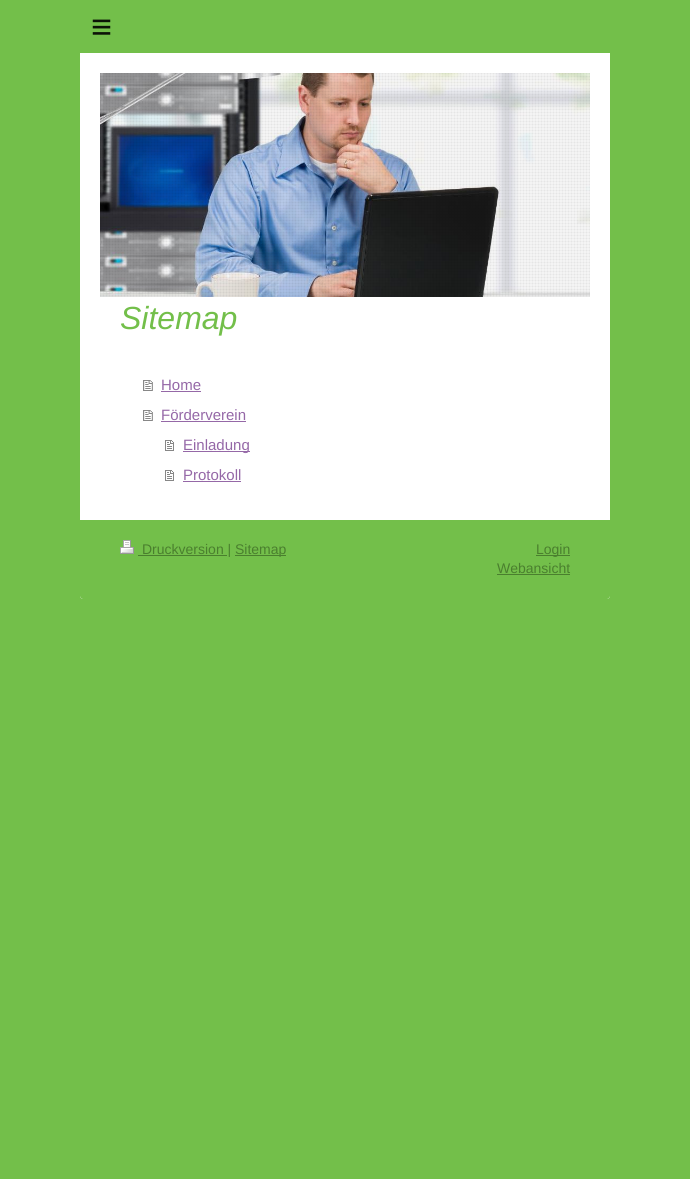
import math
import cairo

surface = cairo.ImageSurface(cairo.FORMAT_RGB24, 690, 1179)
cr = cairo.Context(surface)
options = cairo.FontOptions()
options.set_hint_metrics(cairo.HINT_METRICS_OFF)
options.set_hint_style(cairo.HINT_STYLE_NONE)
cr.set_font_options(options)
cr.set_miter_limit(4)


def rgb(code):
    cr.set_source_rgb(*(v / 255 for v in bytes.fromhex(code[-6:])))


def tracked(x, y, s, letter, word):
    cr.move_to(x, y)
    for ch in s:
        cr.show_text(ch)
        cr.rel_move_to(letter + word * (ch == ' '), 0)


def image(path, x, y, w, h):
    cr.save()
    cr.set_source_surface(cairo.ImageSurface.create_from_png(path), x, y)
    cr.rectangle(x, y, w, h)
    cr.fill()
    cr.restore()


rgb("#73bf4a")
cr.paint()
rgb("#ffffff")
cr.new_path()
cr.move_to(80, 0)
cr.line_to(610, 0)
cr.line_to(610, 596)
cr.curve_to(610, 597.5, 608.5, 599, 607, 599)
cr.line_to(83, 599)
cr.curve_to(81.5, 599, 80, 597.5, 80, 596)
cr.close_path()
cr.fill()
rgb("#73bf4a")
cr.rectangle(80, 0, 530, 53)
cr.fill()
image("img/1.png", 100, 73, 490, 224)
image("img/2.png", 100, 73, 490, 224)
image("img/3.png", 143, 380, 10, 11)
rgb("#9568a7")
cr.rectangle(161, 391, 40, 1)
cr.fill()
image("img/3.png", 143, 410, 10, 11)
cr.rectangle(161, 421, 85, 1)
cr.fill()
image("img/4.png", 165, 440, 9, 11)
cr.rectangle(183, 451, 67, 1)
cr.fill()
image("img/4.png", 165, 470, 9, 11)
cr.rectangle(183, 481, 58, 1)
cr.fill()
rgb("#73bf4a")
cr.new_path()
cr.move_to(80, 520)
cr.line_to(610, 520)
cr.line_to(610, 596)
cr.curve_to(610, 597.5, 608.5, 599, 607, 599)
cr.line_to(83, 599)
cr.curve_to(81.5, 599, 80, 597.5, 80, 596)
cr.close_path()
cr.fill()
image("img/5.png", 120, 540, 14, 14)
for x, y, w, h, color in [
    (138, 555, 89, 1, "#4a7f2e"),
    (235, 555, 51, 1, "#4a7f2e"),
    (536, 555, 34, 1, "#4a7f2e"),
    (497, 574, 73, 1, "#4a7f2e"),
]:
    rgb(color)
    cr.rectangle(x, y, w, h)
    cr.fill()
cr.select_font_face("Liberation Sans")
cr.set_font_size(36)
rgb("#0c1307")
tracked(91, 39, "≡", 10, 0)
cr.select_font_face("Liberation Sans", cairo.FONT_SLANT_ITALIC)
cr.set_font_size(32)
rgb("#73bf4a")
cr.move_to(120, 329)
cr.show_text("Sitemap")
cr.select_font_face("Liberation Sans")
cr.set_font_size(15)
rgb("#9568a7")
for x, y, s in [
    (161, 390, "Home"),
    (161, 420, "Förderverein"),
    (183, 450, "Einladung"),
    (183, 480, "Protokoll"),
]:
    cr.move_to(x, y)
    cr.show_text(s)
cr.set_font_size(14)
rgb("#4a7f2e")
for x, y, s in [
    (142, 554, "Druckversion |"),
    (235, 554, "Sitemap"),
    (536, 554, "Login"),
    (497, 573, "Webansicht"),
]:
    cr.move_to(x, y)
    cr.show_text(s)
surface.write_to_png("page.png")
